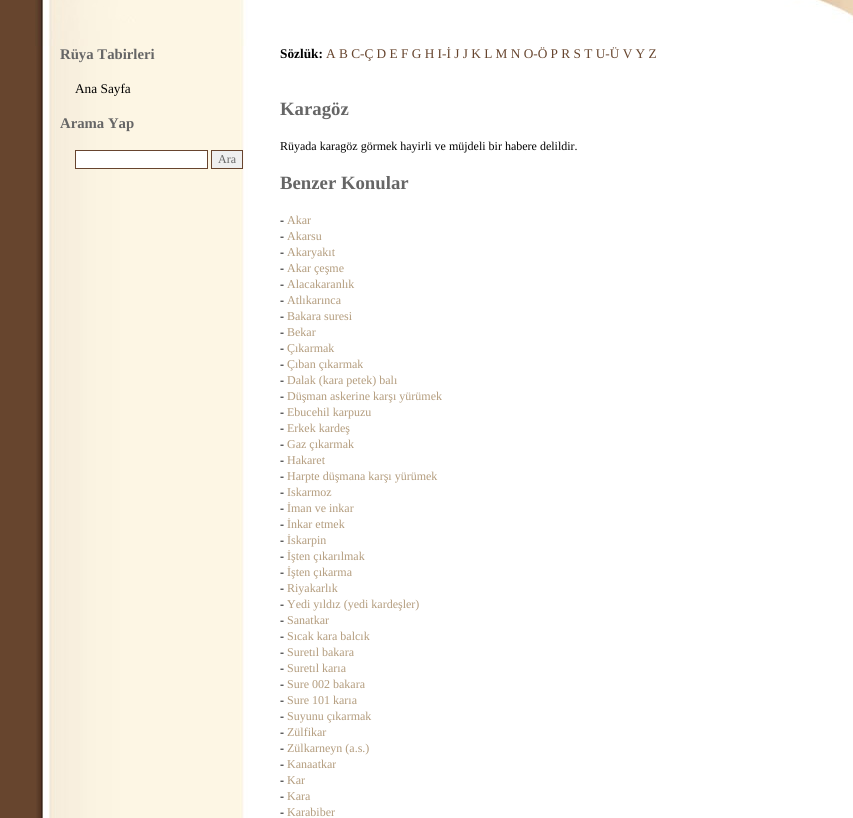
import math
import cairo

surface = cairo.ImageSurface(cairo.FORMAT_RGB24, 853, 818)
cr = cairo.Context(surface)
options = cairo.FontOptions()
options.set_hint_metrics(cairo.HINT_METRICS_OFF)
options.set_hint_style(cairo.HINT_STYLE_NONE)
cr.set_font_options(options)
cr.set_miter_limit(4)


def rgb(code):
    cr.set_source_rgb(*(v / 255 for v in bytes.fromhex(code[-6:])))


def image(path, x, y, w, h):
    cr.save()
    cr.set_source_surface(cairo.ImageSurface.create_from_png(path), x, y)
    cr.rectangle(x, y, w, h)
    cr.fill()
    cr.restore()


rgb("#67452e")
cr.paint()
image("img/1.png", 35, 0, 818, 46)
image("img/2.png", 36, 46, 817, 772)
rgb("#ffffff")
cr.rectangle(75.5, 150.5, 132, 18)
cr.fill_preserve()
rgb("#67442e")
cr.set_line_width(1)
cr.stroke()
rgb("#efefef")
cr.rectangle(211.5, 150.5, 31, 18)
cr.fill_preserve()
rgb("#67442e")
cr.stroke()
cr.select_font_face("Liberation Serif", cairo.FONT_SLANT_NORMAL, cairo.FONT_WEIGHT_BOLD)
cr.set_font_size(14.75)
rgb("#666666")
cr.move_to(60, 59)
cr.show_text("Rüya Tabirleri")
cr.select_font_face("Liberation Serif")
cr.set_font_size(13.3)
rgb("#000000")
cr.move_to(75, 93)
cr.show_text("Ana Sayfa")
cr.select_font_face("Liberation Serif", cairo.FONT_SLANT_NORMAL, cairo.FONT_WEIGHT_BOLD)
cr.set_font_size(14.75)
rgb("#666666")
cr.move_to(60, 128)
cr.show_text("Arama Yap")
cr.select_font_face("Liberation Serif")
cr.set_font_size(12)
cr.move_to(218, 163)
cr.show_text("Ara")
cr.select_font_face("Liberation Serif", cairo.FONT_SLANT_NORMAL, cairo.FONT_WEIGHT_BOLD)
cr.set_font_size(13.3)
rgb("#000000")
cr.move_to(280, 58)
cr.show_text("Sözlük:")
cr.select_font_face("Liberation Serif")
rgb("#67452e")
cr.move_to(326, 58)
cr.show_text("A B C-Ç D E F G H I-İ J J K L M N O-Ö P R S T U-Ü V Y Z")
cr.select_font_face("Liberation Serif", cairo.FONT_SLANT_NORMAL, cairo.FONT_WEIGHT_BOLD)
cr.set_font_size(18.75)
rgb("#666666")
cr.move_to(280, 115)
cr.show_text("Karagöz")
cr.select_font_face("Liberation Serif")
cr.set_font_size(12)
rgb("#000000")
cr.move_to(280, 150)
cr.show_text("Rüyada karagöz görmek hayirli ve müjdeli bir habere delildir.")
cr.select_font_face("Liberation Serif", cairo.FONT_SLANT_NORMAL, cairo.FONT_WEIGHT_BOLD)
cr.set_font_size(18.75)
rgb("#666666")
cr.move_to(280, 189)
cr.show_text("Benzer Konular")
cr.select_font_face("Liberation Serif")
cr.set_font_size(12)
rgb("#000000")
cr.move_to(280, 224)
cr.show_text("-")
rgb("#b39c7d")
cr.move_to(287, 224)
cr.show_text("Akar")
rgb("#000000")
cr.move_to(280, 240)
cr.show_text("-")
rgb("#b39c7d")
cr.move_to(287, 240)
cr.show_text("Akarsu")
rgb("#000000")
cr.move_to(280, 256)
cr.show_text("-")
rgb("#b39c7d")
cr.move_to(287, 256)
cr.show_text("Akaryakıt")
rgb("#000000")
cr.move_to(280, 272)
cr.show_text("-")
rgb("#b39c7d")
cr.move_to(287, 272)
cr.show_text("Akar çeşme")
rgb("#000000")
cr.move_to(280, 288)
cr.show_text("-")
rgb("#b39c7d")
cr.move_to(287, 288)
cr.show_text("Alacakaranlık")
rgb("#000000")
cr.move_to(280, 304)
cr.show_text("-")
rgb("#b39c7d")
cr.move_to(287, 304)
cr.show_text("Atlıkarınca")
rgb("#000000")
cr.move_to(280, 320)
cr.show_text("-")
rgb("#b39c7d")
cr.move_to(287, 320)
cr.show_text("Bakara suresi")
rgb("#000000")
cr.move_to(280, 336)
cr.show_text("-")
rgb("#b39c7d")
cr.move_to(287, 336)
cr.show_text("Bekar")
rgb("#000000")
cr.move_to(280, 352)
cr.show_text("-")
rgb("#b39c7d")
cr.move_to(287, 352)
cr.show_text("Çıkarmak")
rgb("#000000")
cr.move_to(280, 368)
cr.show_text("-")
rgb("#b39c7d")
cr.move_to(287, 368)
cr.show_text("Çıban çıkarmak")
rgb("#000000")
cr.move_to(280, 384)
cr.show_text("-")
rgb("#b39c7d")
cr.move_to(287, 384)
cr.show_text("Dalak (kara petek) balı")
rgb("#000000")
cr.move_to(280, 400)
cr.show_text("-")
rgb("#b39c7d")
cr.move_to(287, 400)
cr.show_text("Düşman askerine karşı yürümek")
rgb("#000000")
cr.move_to(280, 416)
cr.show_text("-")
rgb("#b39c7d")
cr.move_to(287, 416)
cr.show_text("Ebucehil karpuzu")
rgb("#000000")
cr.move_to(280, 432)
cr.show_text("-")
rgb("#b39c7d")
cr.move_to(287, 432)
cr.show_text("Erkek kardeş")
rgb("#000000")
cr.move_to(280, 448)
cr.show_text("-")
rgb("#b39c7d")
cr.move_to(287, 448)
cr.show_text("Gaz çıkarmak")
rgb("#000000")
cr.move_to(280, 464)
cr.show_text("-")
rgb("#b39c7d")
cr.move_to(287, 464)
cr.show_text("Hakaret")
rgb("#000000")
cr.move_to(280, 480)
cr.show_text("-")
rgb("#b39c7d")
cr.move_to(287, 480)
cr.show_text("Harpte düşmana karşı yürümek")
rgb("#000000")
cr.move_to(280, 496)
cr.show_text("-")
rgb("#b39c7d")
cr.move_to(287, 496)
cr.show_text("Iskarmoz")
rgb("#000000")
cr.move_to(280, 512)
cr.show_text("-")
rgb("#b39c7d")
cr.move_to(287, 512)
cr.show_text("İman ve inkar")
rgb("#000000")
cr.move_to(280, 528)
cr.show_text("-")
rgb("#b39c7d")
cr.move_to(287, 528)
cr.show_text("İnkar etmek")
rgb("#000000")
cr.move_to(280, 544)
cr.show_text("-")
rgb("#b39c7d")
cr.move_to(287, 544)
cr.show_text("İskarpin")
rgb("#000000")
cr.move_to(280, 560)
cr.show_text("-")
rgb("#b39c7d")
cr.move_to(287, 560)
cr.show_text("İşten çıkarılmak")
rgb("#000000")
cr.move_to(280, 576)
cr.show_text("-")
rgb("#b39c7d")
cr.move_to(287, 576)
cr.show_text("İşten çıkarma")
rgb("#000000")
cr.move_to(280, 592)
cr.show_text("-")
rgb("#b39c7d")
cr.move_to(287, 592)
cr.show_text("Riyakarlık")
rgb("#000000")
cr.move_to(280, 608)
cr.show_text("-")
rgb("#b39c7d")
cr.move_to(287, 608)
cr.show_text("Yedi yıldız (yedi kardeşler)")
rgb("#000000")
cr.move_to(280, 624)
cr.show_text("-")
rgb("#b39c7d")
cr.move_to(287, 624)
cr.show_text("Sanatkar")
rgb("#000000")
cr.move_to(280, 640)
cr.show_text("-")
rgb("#b39c7d")
cr.move_to(287, 640)
cr.show_text("Sıcak kara balcık")
rgb("#000000")
cr.move_to(280, 656)
cr.show_text("-")
rgb("#b39c7d")
cr.move_to(287, 656)
cr.show_text("Suretıl bakara")
rgb("#000000")
cr.move_to(280, 672)
cr.show_text("-")
rgb("#b39c7d")
cr.move_to(287, 672)
cr.show_text("Suretıl karıa")
rgb("#000000")
cr.move_to(280, 688)
cr.show_text("-")
rgb("#b39c7d")
cr.move_to(287, 688)
cr.show_text("Sure 002 bakara")
rgb("#000000")
cr.move_to(280, 704)
cr.show_text("-")
rgb("#b39c7d")
cr.move_to(287, 704)
cr.show_text("Sure 101 karıa")
rgb("#000000")
cr.move_to(280, 720)
cr.show_text("-")
rgb("#b39c7d")
cr.move_to(287, 720)
cr.show_text("Suyunu çıkarmak")
rgb("#000000")
cr.move_to(280, 736)
cr.show_text("-")
rgb("#b39c7d")
cr.move_to(287, 736)
cr.show_text("Zülfikar")
rgb("#000000")
cr.move_to(280, 752)
cr.show_text("-")
rgb("#b39c7d")
cr.move_to(287, 752)
cr.show_text("Zülkarneyn (a.s.)")
rgb("#000000")
cr.move_to(280, 768)
cr.show_text("-")
rgb("#b39c7d")
cr.move_to(287, 768)
cr.show_text("Kanaatkar")
rgb("#000000")
cr.move_to(280, 784)
cr.show_text("-")
rgb("#b39c7d")
cr.move_to(287, 784)
cr.show_text("Kar")
rgb("#000000")
cr.move_to(280, 800)
cr.show_text("-")
rgb("#b39c7d")
cr.move_to(287, 800)
cr.show_text("Kara")
rgb("#000000")
cr.move_to(280, 816)
cr.show_text("-")
rgb("#b39c7d")
cr.move_to(287, 816)
cr.show_text("Karabiber")
surface.write_to_png("page.png")
